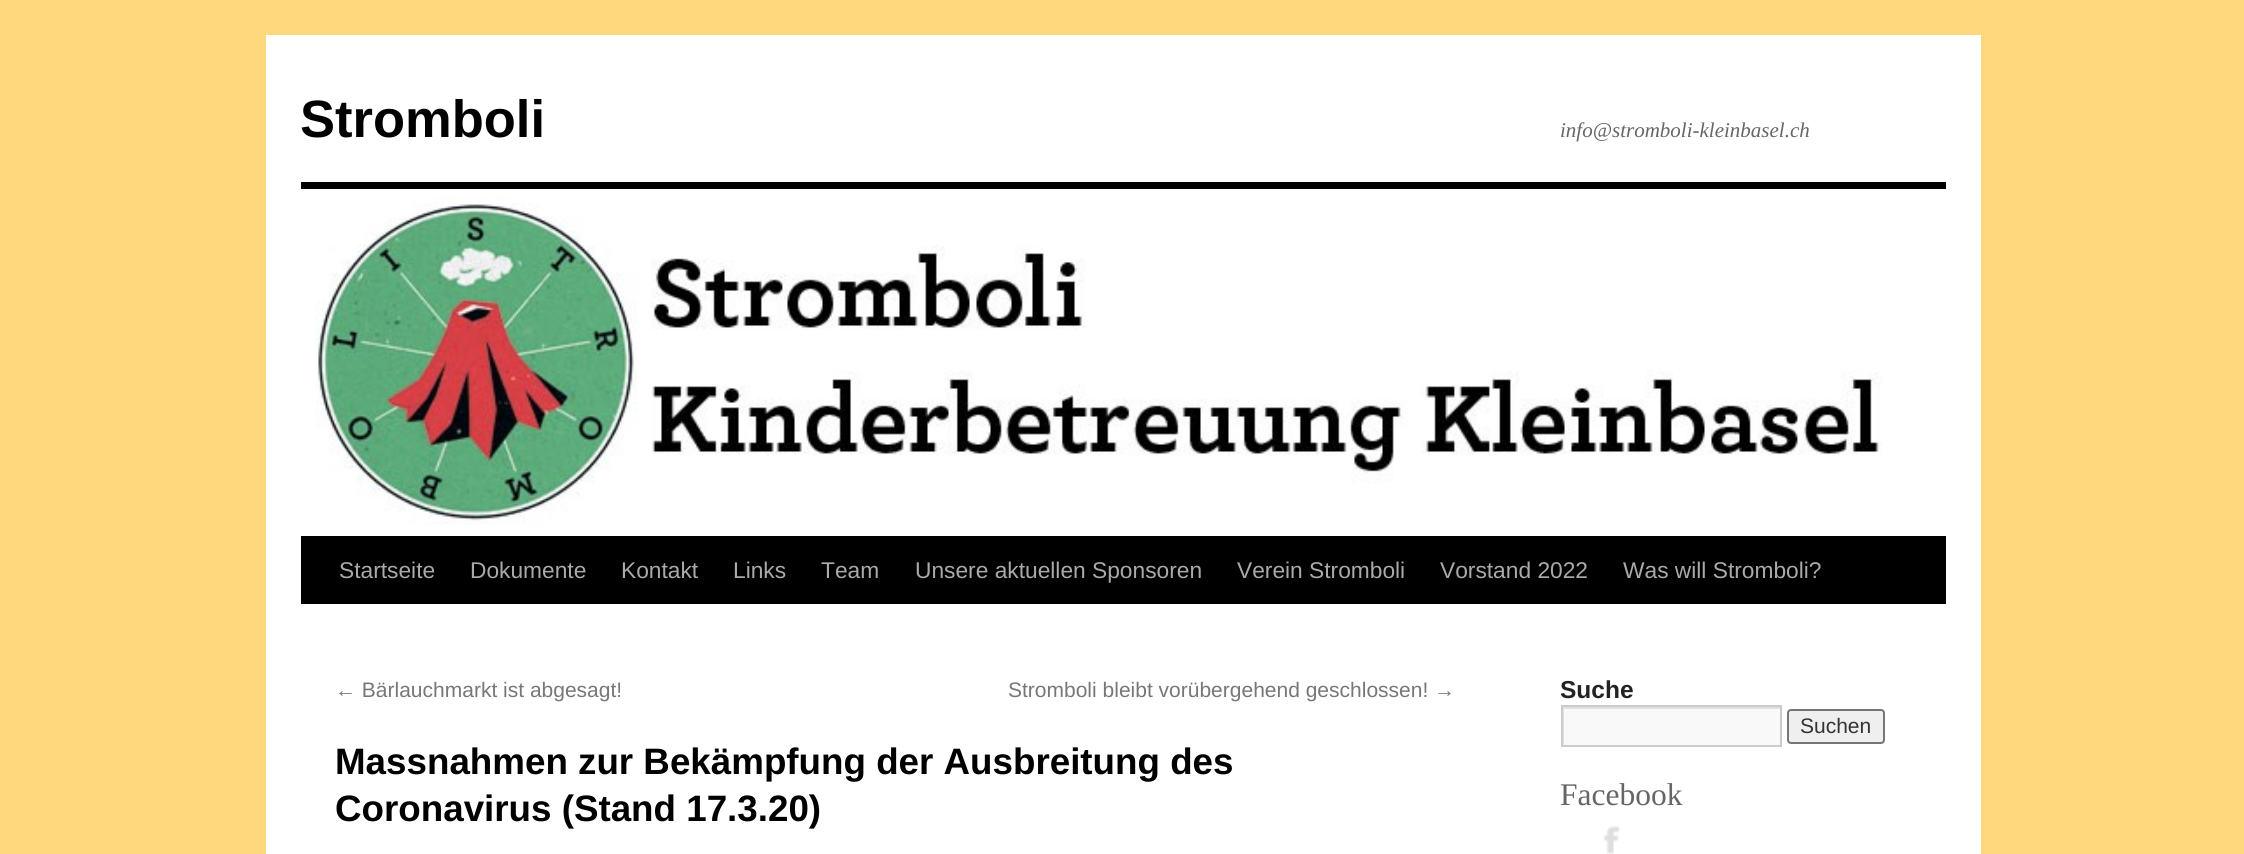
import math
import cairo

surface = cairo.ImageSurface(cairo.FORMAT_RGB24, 2244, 854)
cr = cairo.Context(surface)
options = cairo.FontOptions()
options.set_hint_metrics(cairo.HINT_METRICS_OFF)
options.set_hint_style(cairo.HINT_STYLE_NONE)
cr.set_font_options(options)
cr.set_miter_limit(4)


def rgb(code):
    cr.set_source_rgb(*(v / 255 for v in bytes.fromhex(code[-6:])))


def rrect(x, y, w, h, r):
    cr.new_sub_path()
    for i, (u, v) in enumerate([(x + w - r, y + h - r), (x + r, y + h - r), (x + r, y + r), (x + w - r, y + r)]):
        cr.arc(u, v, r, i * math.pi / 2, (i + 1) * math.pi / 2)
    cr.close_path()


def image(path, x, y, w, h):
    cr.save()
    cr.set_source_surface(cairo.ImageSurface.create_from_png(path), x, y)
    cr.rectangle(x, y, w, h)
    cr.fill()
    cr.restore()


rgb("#ffd77d")
cr.paint()
for x, y, w, h, color in [
    (266, 35, 1715, 819, "#ffffff"),
    (301, 182, 1645, 7, "#000000"),
    (301, 536, 1645, 68, "#000000"),
]:
    rgb(color)
    cr.rectangle(x, y, w, h)
    cr.fill()
image("img/1.png", 315, 196, 1568, 329)
rgb("#f9f9f9")
cr.rectangle(1564, 709, 216, 36)
cr.fill()
cr.save()
cr.rectangle(1563, 707, 217, 39)
cr.clip()
rgb("#e0e0e0")
cr.set_fill_rule(cairo.FILL_RULE_EVEN_ODD)
cr.new_path()
cr.move_to(1390, 534)
cr.line_to(1953, 534)
cr.line_to(1953, 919)
cr.line_to(1390, 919)
cr.close_path()
cr.move_to(1564, 709)
cr.line_to(1782, 709)
cr.line_to(1782, 747)
cr.line_to(1564, 747)
cr.close_path()
cr.fill()
cr.restore()
cr.rectangle(1562, 706, 219, 40)
rgb("#cccccc")
cr.stroke()
rgb("#efefef")
rrect(1788, 710, 96, 33, 3)
cr.fill_preserve()
rgb("#767676")
cr.stroke()
image("img/2.png", 1603, 826, 18, 28)
cr.select_font_face("Liberation Sans", cairo.FONT_SLANT_NORMAL, cairo.FONT_WEIGHT_BOLD)
cr.set_font_size(52.5)
rgb("#000000")
cr.move_to(300, 137)
cr.show_text("Stromboli")
cr.select_font_face("Liberation Serif", cairo.FONT_SLANT_ITALIC)
cr.set_font_size(21)
rgb("#666666")
cr.move_to(1560, 137)
cr.show_text("info@stromboli-kleinbasel.ch")
cr.select_font_face("Liberation Sans")
cr.set_font_size(22.75)
rgb("#aaaaaa")
for x, y, s in [
    (339, 578, "Startseite"),
    (470, 578, "Dokumente"),
    (621, 578, "Kontakt"),
    (733, 578, "Links"),
    (821, 578, "Team"),
    (915, 578, "Unsere aktuellen Sponsoren"),
    (1237, 578, "Verein Stromboli"),
    (1440, 578, "Vorstand 2022"),
    (1623, 578, "Was will Stromboli?"),
]:
    cr.move_to(x, y)
    cr.show_text(s)
cr.set_font_size(21)
rgb("#777777")
cr.move_to(335, 697)
cr.show_text("← Bärlauchmarkt ist abgesagt!")
cr.move_to(1008, 697)
cr.show_text("Stromboli bleibt vorübergehend geschlossen! →")
cr.select_font_face("Liberation Sans", cairo.FONT_SLANT_NORMAL, cairo.FONT_WEIGHT_BOLD)
cr.set_font_size(36.75)
rgb("#000000")
cr.move_to(335, 774)
cr.show_text("Massnahmen zur Bekämpfung der Ausbreitung des")
cr.move_to(335, 821)
cr.show_text("Coronavirus (Stand 17.3.20)")
cr.set_font_size(24.5)
rgb("#222222")
cr.move_to(1560, 698)
cr.show_text("Suche")
cr.select_font_face("Liberation Sans")
cr.set_font_size(21)
rgb("#333333")
cr.move_to(1800, 733)
cr.show_text("Suchen")
cr.select_font_face("Liberation Serif")
cr.set_font_size(31.5)
rgb("#666666")
cr.move_to(1560, 805)
cr.show_text("Facebook")
surface.write_to_png("page.png")
